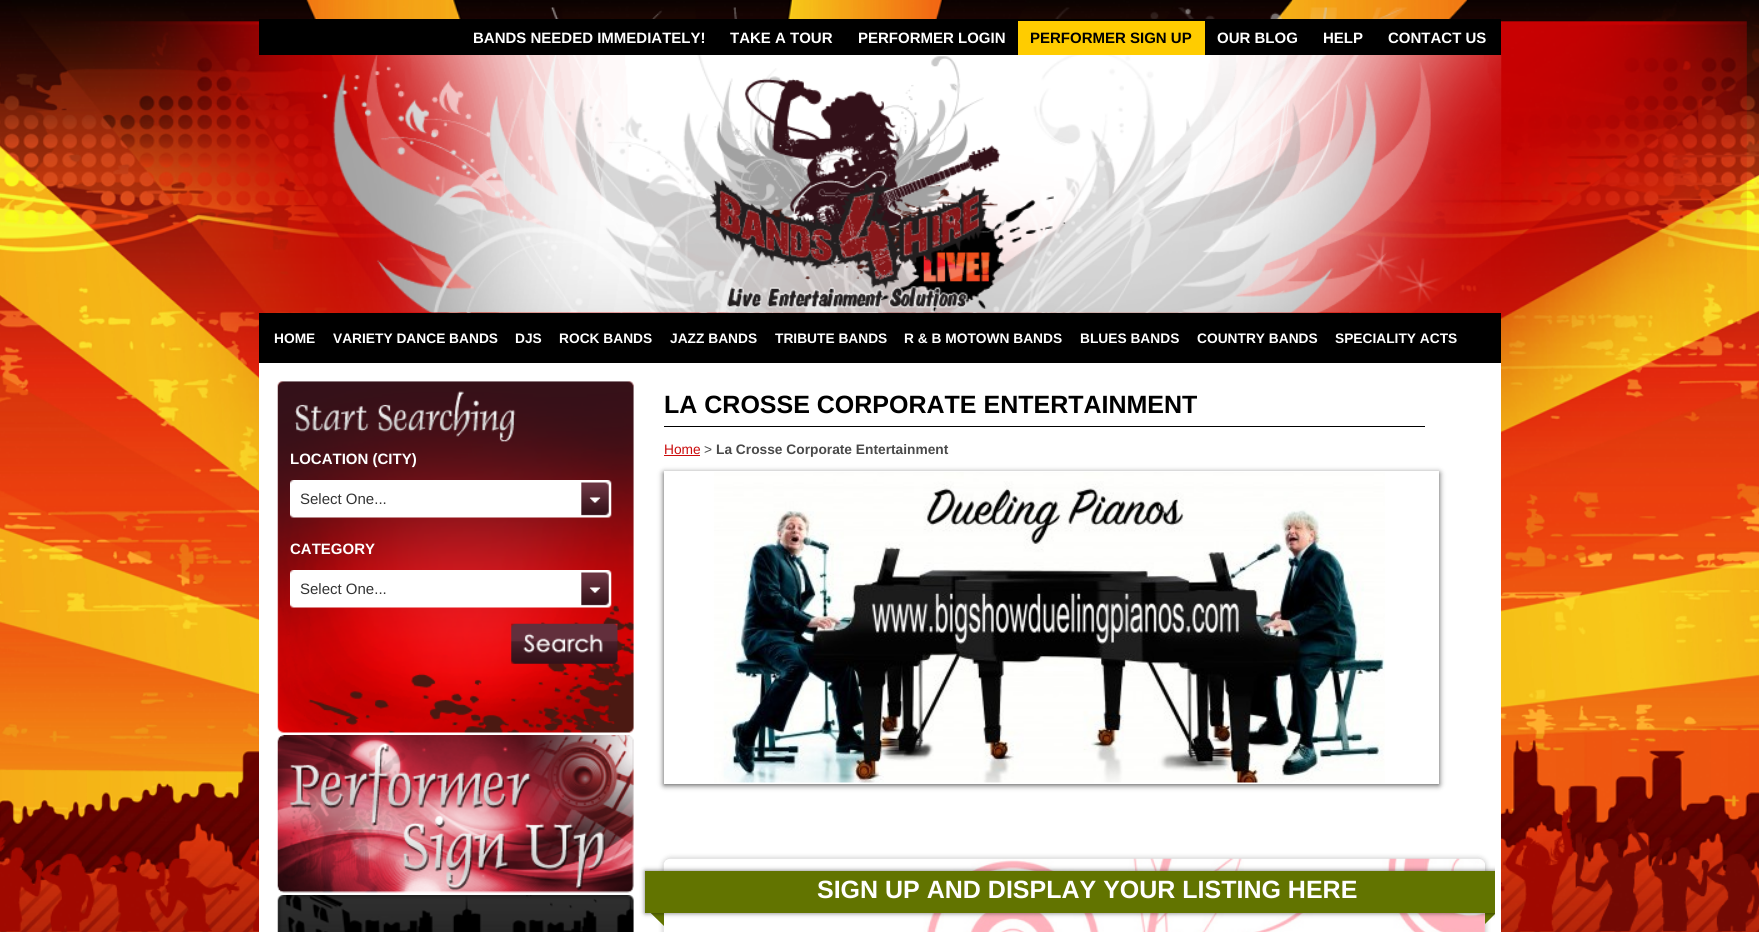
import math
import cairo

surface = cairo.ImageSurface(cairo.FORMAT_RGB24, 1759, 932)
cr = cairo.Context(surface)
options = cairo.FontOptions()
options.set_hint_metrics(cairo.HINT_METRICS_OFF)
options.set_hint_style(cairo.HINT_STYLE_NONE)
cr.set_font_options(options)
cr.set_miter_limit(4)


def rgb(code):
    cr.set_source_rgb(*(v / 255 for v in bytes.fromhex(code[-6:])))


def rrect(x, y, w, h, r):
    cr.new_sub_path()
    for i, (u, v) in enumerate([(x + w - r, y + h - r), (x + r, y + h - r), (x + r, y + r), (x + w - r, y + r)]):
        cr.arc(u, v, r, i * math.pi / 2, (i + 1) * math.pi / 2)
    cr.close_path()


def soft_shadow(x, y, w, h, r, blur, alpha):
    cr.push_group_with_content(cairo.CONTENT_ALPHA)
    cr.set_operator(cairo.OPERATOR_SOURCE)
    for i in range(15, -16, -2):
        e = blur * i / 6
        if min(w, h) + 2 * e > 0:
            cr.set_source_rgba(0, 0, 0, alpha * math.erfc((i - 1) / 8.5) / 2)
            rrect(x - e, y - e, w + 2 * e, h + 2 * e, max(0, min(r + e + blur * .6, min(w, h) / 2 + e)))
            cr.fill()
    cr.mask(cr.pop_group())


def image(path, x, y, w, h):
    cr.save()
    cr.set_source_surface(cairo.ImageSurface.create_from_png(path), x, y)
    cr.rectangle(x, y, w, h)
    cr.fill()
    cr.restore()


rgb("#ffffff")
cr.paint()
image("img/1.png", 0, 0, 1759, 932)
rgb("#000000")
cr.rectangle(259, 19, 1242, 36)
cr.fill()
rgb("#ffcc00")
cr.rectangle(1018, 21, 187, 34)
cr.fill()
image("img/2.png", 322, 55, 1180, 258)
image("img/3.png", 709, 56, 357, 256)
rgb("#000000")
cr.rectangle(259, 313, 1242, 50)
cr.fill()
rgb("#ffffff")
cr.rectangle(259, 363, 1242, 569)
cr.fill()
image("img/4.png", 277, 381, 357, 352)
image("img/5.png", 290, 480, 322, 38)
image("img/6.png", 290, 570, 322, 38)
image("img/7.png", 511, 623, 107, 41)
image("img/8.png", 277, 735, 357, 158)
image("img/9.png", 277, 895, 357, 37)
rgb("#000000")
cr.rectangle(664, 426, 761, 1)
cr.fill()
rgb("#cb0b0c")
cr.rectangle(664, 455, 36, 1)
cr.fill()
rgb("#4a4a4a")
soft_shadow(664, 473, 775, 312, 0, 3, 1)
rgb("#ffffff")
cr.rectangle(664, 471, 775, 313)
cr.fill()
image("img/10.png", 714, 472, 671, 311)
rgb("#000000")
soft_shadow(664, 859, 821, 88, 6, 3, 0.3)
image("img/11.png", 663, 858, 822, 74)
rgb("#627400")
cr.new_path()
cr.move_to(664, 889)
cr.line_to(664, 926)
cr.line_to(645, 907.5)
cr.close_path()
cr.fill()
cr.save()
cr.rectangle(265, 369, 1230, 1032)
cr.clip()
cr.new_path()
cr.move_to(1485, 924)
cr.line_to(1485, 886)
cr.line_to(1504, 905)
cr.close_path()
cr.fill()
cr.restore()
cr.save()
cr.rectangle(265, 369, 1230, 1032)
cr.clip()
rgb("#000000")
soft_shadow(645, 871, 859, 42, 0, 2.5, 0.55)
cr.restore()
cr.rectangle(645, 871, 850, 42)
cr.fill()
cr.select_font_face("Liberation Sans", cairo.FONT_SLANT_NORMAL, cairo.FONT_WEIGHT_BOLD)
cr.set_font_size(15)
rgb("#ffffff")
for x, y, s in [
    (473, 43, "BANDS NEEDED IMMEDIATELY!"),
    (730, 43, "TAKE A TOUR"),
    (858, 43, "PERFORMER LOGIN"),
]:
    cr.move_to(x, y)
    cr.show_text(s)
rgb("#000000")
cr.move_to(1030, 43)
cr.show_text("PERFORMER SIGN UP")
rgb("#ffffff")
for x, y, s in [
    (1217, 43, "OUR BLOG"),
    (1323, 43, "HELP"),
    (1388, 43, "CONTACT US"),
]:
    cr.move_to(x, y)
    cr.show_text(s)
cr.set_font_size(13.75)
for x, y, s in [
    (274, 343, "HOME"),
    (333, 343, "VARIETY DANCE BANDS"),
    (515, 343, "DJS"),
    (559, 343, "ROCK BANDS"),
    (670, 343, "JAZZ BANDS"),
    (775, 343, "TRIBUTE BANDS"),
    (904, 343, "R & B MOTOWN BANDS"),
    (1080, 343, "BLUES BANDS"),
    (1197, 343, "COUNTRY BANDS"),
    (1335, 343, "SPECIALITY ACTS"),
]:
    cr.move_to(x, y)
    cr.show_text(s)
cr.set_font_size(15)
cr.move_to(290, 464)
cr.show_text("LOCATION (CITY)")
cr.select_font_face("Liberation Sans")
rgb("#333333")
cr.move_to(300, 504)
cr.show_text("Select One...")
cr.select_font_face("Liberation Sans", cairo.FONT_SLANT_NORMAL, cairo.FONT_WEIGHT_BOLD)
rgb("#ffffff")
cr.move_to(290, 554)
cr.show_text("CATEGORY")
cr.select_font_face("Liberation Sans")
rgb("#333333")
cr.move_to(300, 594)
cr.show_text("Select One...")
cr.select_font_face("Liberation Sans", cairo.FONT_SLANT_NORMAL, cairo.FONT_WEIGHT_BOLD)
cr.set_font_size(25)
rgb("#000000")
cr.move_to(664, 413)
cr.show_text("LA CROSSE CORPORATE ENTERTAINMENT")
cr.select_font_face("Liberation Sans")
cr.set_font_size(13.75)
rgb("#cb0b0c")
cr.move_to(664, 454)
cr.show_text("Home")
rgb("#4a4a4a")
cr.move_to(704, 454)
cr.show_text(">")
cr.select_font_face("Liberation Sans", cairo.FONT_SLANT_NORMAL, cairo.FONT_WEIGHT_BOLD)
cr.move_to(716, 454)
cr.show_text("La Crosse Corporate Entertainment")
cr.set_font_size(25)
rgb("#ffffff")
cr.move_to(817, 898)
cr.show_text("SIGN UP AND DISPLAY YOUR LISTING HERE")
surface.write_to_png("page.png")
